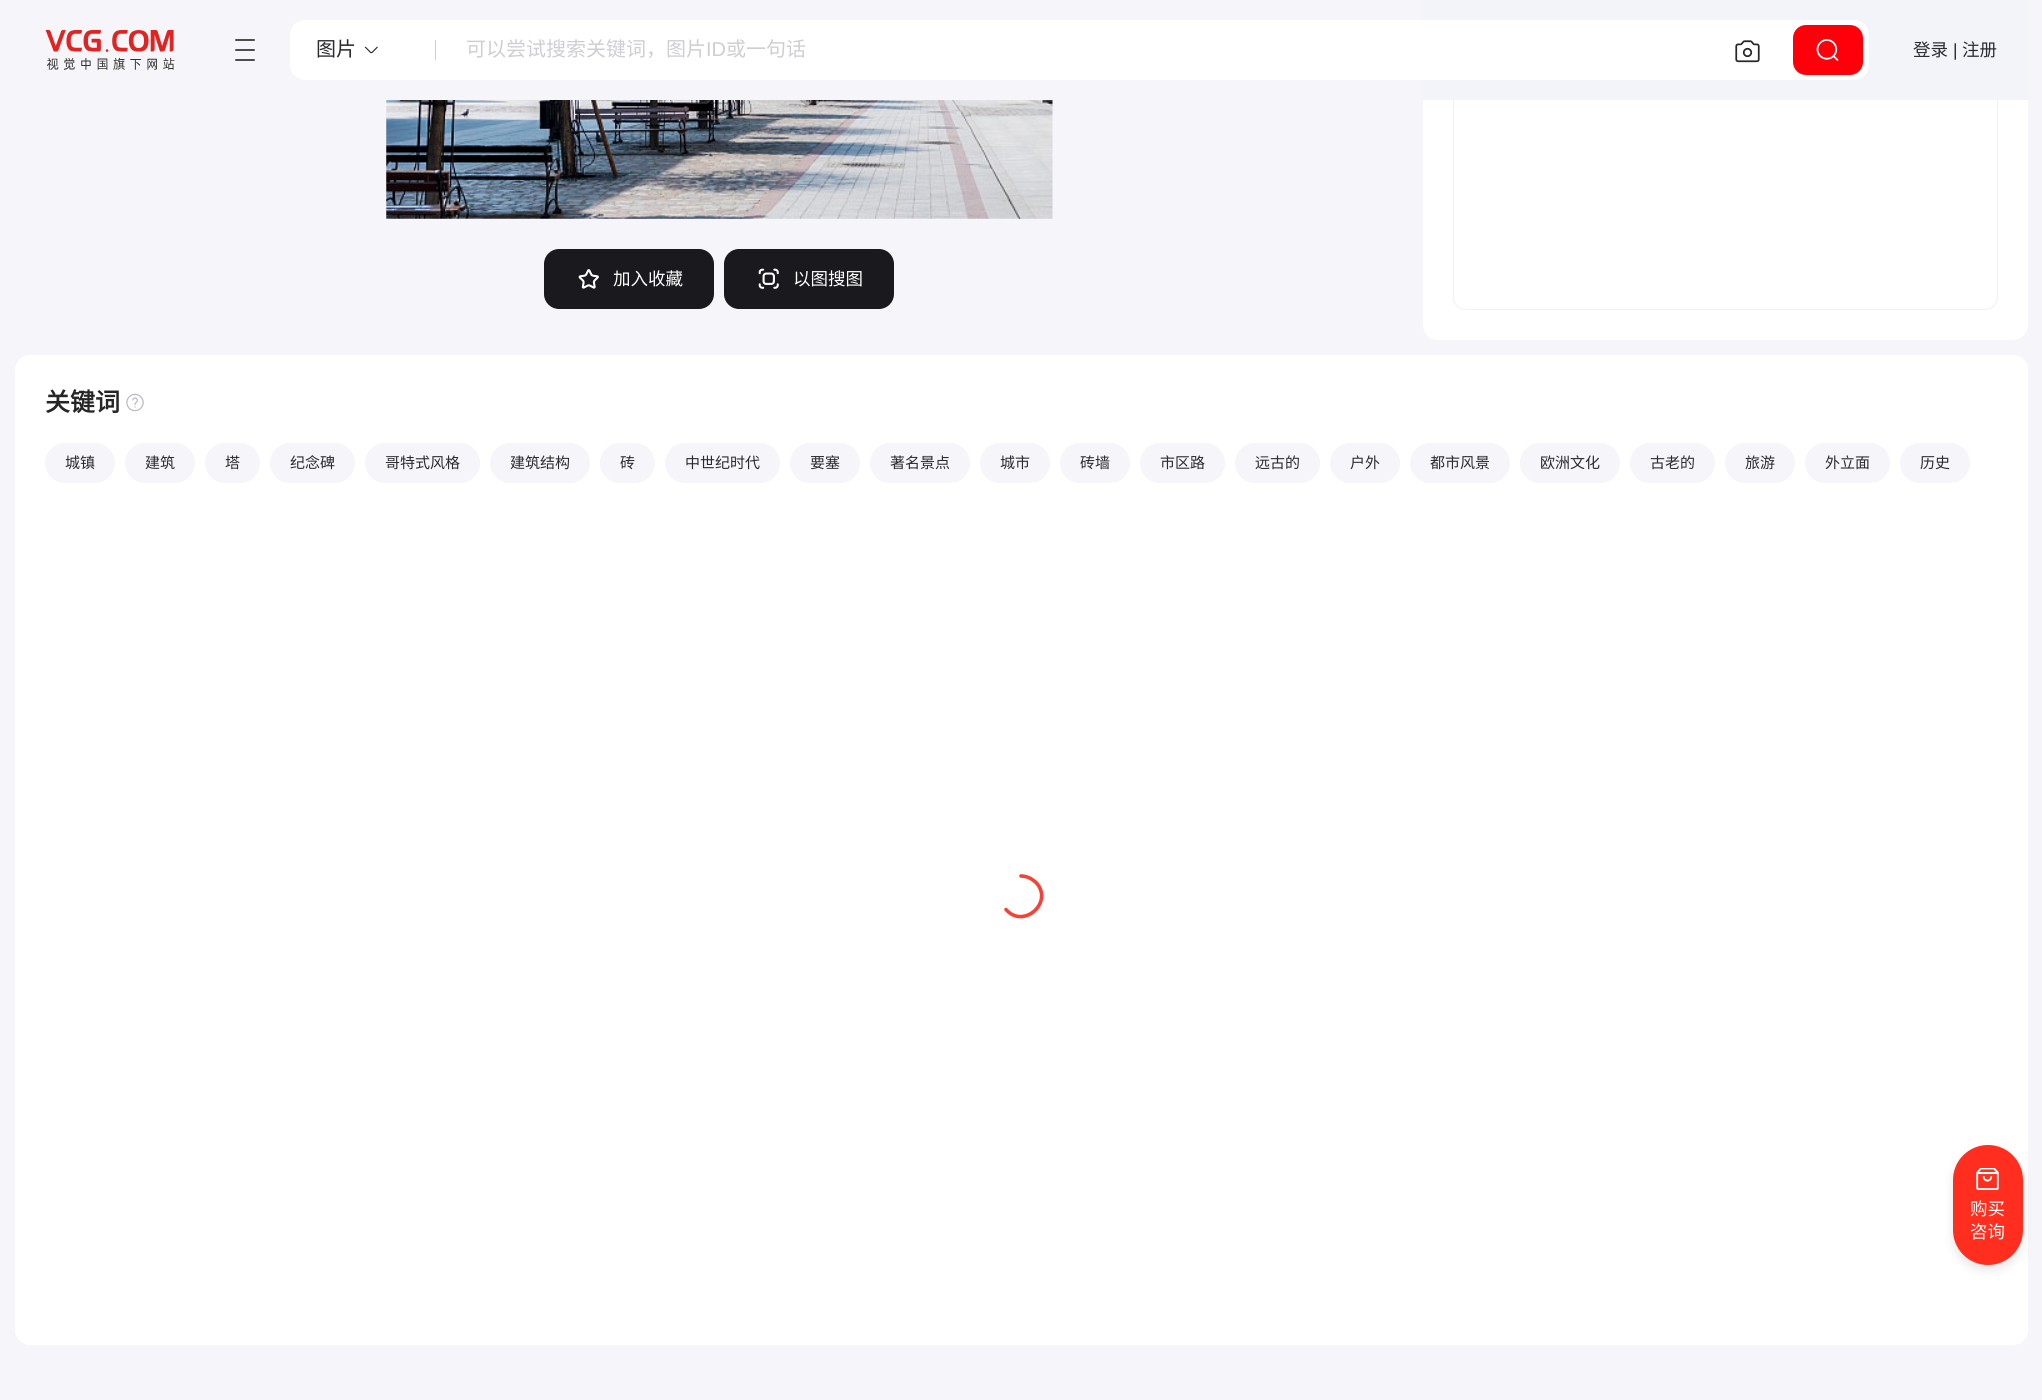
import math
import cairo

surface = cairo.ImageSurface(cairo.FORMAT_RGB24, 2042, 1400)
cr = cairo.Context(surface)
options = cairo.FontOptions()
options.set_hint_metrics(cairo.HINT_METRICS_OFF)
options.set_hint_style(cairo.HINT_STYLE_NONE)
cr.set_font_options(options)
cr.set_miter_limit(4)


def rgb(code):
    cr.set_source_rgb(*(v / 255 for v in bytes.fromhex(code[-6:])))


def rrect(x, y, w, h, r):
    cr.new_sub_path()
    for i, (u, v) in enumerate([(x + w - r, y + h - r), (x + r, y + h - r), (x + r, y + r), (x + w - r, y + r)]):
        cr.arc(u, v, r, i * math.pi / 2, (i + 1) * math.pi / 2)
    cr.close_path()


def soft_shadow(x, y, w, h, r, blur, alpha):
    cr.push_group_with_content(cairo.CONTENT_ALPHA)
    cr.set_operator(cairo.OPERATOR_SOURCE)
    for i in range(15, -16, -2):
        e = blur * i / 6
        if min(w, h) + 2 * e > 0:
            cr.set_source_rgba(0, 0, 0, alpha * math.erfc((i - 1) / 8.5) / 2)
            rrect(x - e, y - e, w + 2 * e, h + 2 * e, max(0, min(r + e + blur * .6, min(w, h) / 2 + e)))
            cr.fill()
    cr.mask(cr.pop_group())


def image(path, x, y, w, h):
    cr.save()
    cr.set_source_surface(cairo.ImageSurface.create_from_png(path), x, y)
    cr.rectangle(x, y, w, h)
    cr.fill()
    cr.restore()


rgb("#f5f5fa")
cr.paint()
rgb("#ffffff")
rrect(1423, -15, 605, 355, 15)
cr.fill()
rrect(1453.5, -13.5, 544, 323, 12.5)
rgb("#f0f0f5")
cr.set_line_width(1)
cr.stroke()
rgb("#f3f4f9")
cr.rectangle(1423, 0, 605, 100)
cr.fill()
image("img/1.png", 45, 30, 130, 40)
image("img/2.png", 235, 39, 20, 22)
rgb("#ffffff")
rrect(290.5, 20.5, 1578, 59, 14.5)
cr.fill_preserve()
cr.stroke()
image("img/3.png", 364, 46, 14, 8)
rgb("#ceced6")
cr.rectangle(435, 40, 1, 20)
cr.fill()
image("img/4.png", 1735, 40, 25, 23)
rgb("#ff000a")
rrect(1793, 25, 70, 50, 13)
cr.fill()
image("img/5.png", 1816, 39, 23, 22)
image("img/6.png", 386, 100, 667, 119)
rgb("#19191e")
rrect(544, 249, 170, 60, 15)
cr.fill()
image("img/7.png", 578, 269, 21, 20)
rrect(724, 249, 170, 60, 15)
cr.fill()
image("img/8.png", 758, 268, 21, 21)
rgb("#ffffff")
rrect(15, 355, 2013, 990, 15)
cr.fill()
image("img/9.png", 126, 393, 18, 19)
rgb("#f5f5fa")
rrect(45, 443, 70, 40, 20)
cr.fill()
rrect(125, 443, 70, 40, 20)
cr.fill()
rrect(205, 443, 55, 40, 20)
cr.fill()
rrect(270, 443, 85, 40, 20)
cr.fill()
rrect(365, 443, 115, 40, 20)
cr.fill()
rrect(490, 443, 100, 40, 20)
cr.fill()
rrect(600, 443, 55, 40, 20)
cr.fill()
rrect(665, 443, 115, 40, 20)
cr.fill()
rrect(790, 443, 70, 40, 20)
cr.fill()
rrect(870, 443, 100, 40, 20)
cr.fill()
rrect(980, 443, 70, 40, 20)
cr.fill()
rrect(1060, 443, 70, 40, 20)
cr.fill()
rrect(1140, 443, 85, 40, 20)
cr.fill()
rrect(1235, 443, 85, 40, 20)
cr.fill()
rrect(1330, 443, 70, 40, 20)
cr.fill()
rrect(1410, 443, 100, 40, 20)
cr.fill()
rrect(1520, 443, 100, 40, 20)
cr.fill()
rrect(1630, 443, 85, 40, 20)
cr.fill()
rrect(1725, 443, 70, 40, 20)
cr.fill()
rrect(1805, 443, 85, 40, 20)
cr.fill()
rrect(1900, 443, 70, 40, 20)
cr.fill()
cr.new_path()
cr.move_to(1021, 876)
cr.curve_to(1026.5, 876, 1031.5, 878.5, 1035.5, 882)
cr.curve_to(1055, 901.5, 1023.5, 930, 1006, 909.5)
rgb("#f44336")
cr.set_line_width(3.6)
cr.set_line_cap(cairo.LINE_CAP_ROUND)
cr.stroke()
rgb("#000000")
soft_shadow(1953, 1150, 70, 120, 35, 5, 0.1)
rgb("#ff2e1f")
rrect(1953, 1145, 70, 120, 35)
cr.fill()
image("img/10.png", 1976, 1168, 23, 22)
cr.select_font_face("Noto Sans CJK SC")
cr.set_font_size(20)
rgb("#2a2a30")
cr.move_to(316, 56)
cr.show_text("图片")
rgb("#ceced6")
cr.move_to(466, 56)
cr.show_text("可以尝试搜索关键词，图片")
cr.select_font_face("Liberation Sans")
cr.move_to(706, 56)
cr.show_text("ID")
cr.select_font_face("Noto Sans CJK SC")
cr.move_to(726, 56)
cr.show_text("或一句话")
cr.set_font_size(17.5)
rgb("#2a2a30")
cr.move_to(1913, 56)
cr.show_text("登录")
cr.select_font_face("Liberation Sans")
cr.move_to(1953, 56)
cr.show_text("|")
cr.select_font_face("Noto Sans CJK SC")
cr.move_to(1962, 56)
cr.show_text("注册")
rgb("#ffffff")
cr.move_to(613, 285)
cr.show_text("加入收藏")
cr.move_to(793, 285)
cr.show_text("以图搜图")
cr.select_font_face("Noto Sans CJK SC", cairo.FONT_SLANT_NORMAL, cairo.FONT_WEIGHT_BOLD)
cr.set_font_size(25)
rgb("#262626")
cr.move_to(45, 411)
cr.show_text("关键词")
cr.select_font_face("Noto Sans CJK SC")
cr.set_font_size(15)
rgb("#2a2a30")
for x, y, s in [
    (65, 468, "城镇"),
    (145, 468, "建筑"),
    (225, 468, "塔"),
    (290, 468, "纪念碑"),
    (385, 468, "哥特式风格"),
    (510, 468, "建筑结构"),
    (620, 468, "砖"),
    (685, 468, "中世纪时代"),
    (810, 468, "要塞"),
    (890, 468, "著名景点"),
    (1000, 468, "城市"),
    (1080, 468, "砖墙"),
    (1160, 468, "市区路"),
    (1255, 468, "远古的"),
    (1350, 468, "户外"),
    (1430, 468, "都市风景"),
    (1540, 468, "欧洲文化"),
    (1650, 468, "古老的"),
    (1745, 468, "旅游"),
    (1825, 468, "外立面"),
    (1920, 468, "历史"),
]:
    cr.move_to(x, y)
    cr.show_text(s)
cr.set_font_size(17.5)
rgb("#ffffff")
cr.move_to(1970, 1215)
cr.show_text("购买")
cr.move_to(1970, 1238)
cr.show_text("咨询")
surface.write_to_png("page.png")
